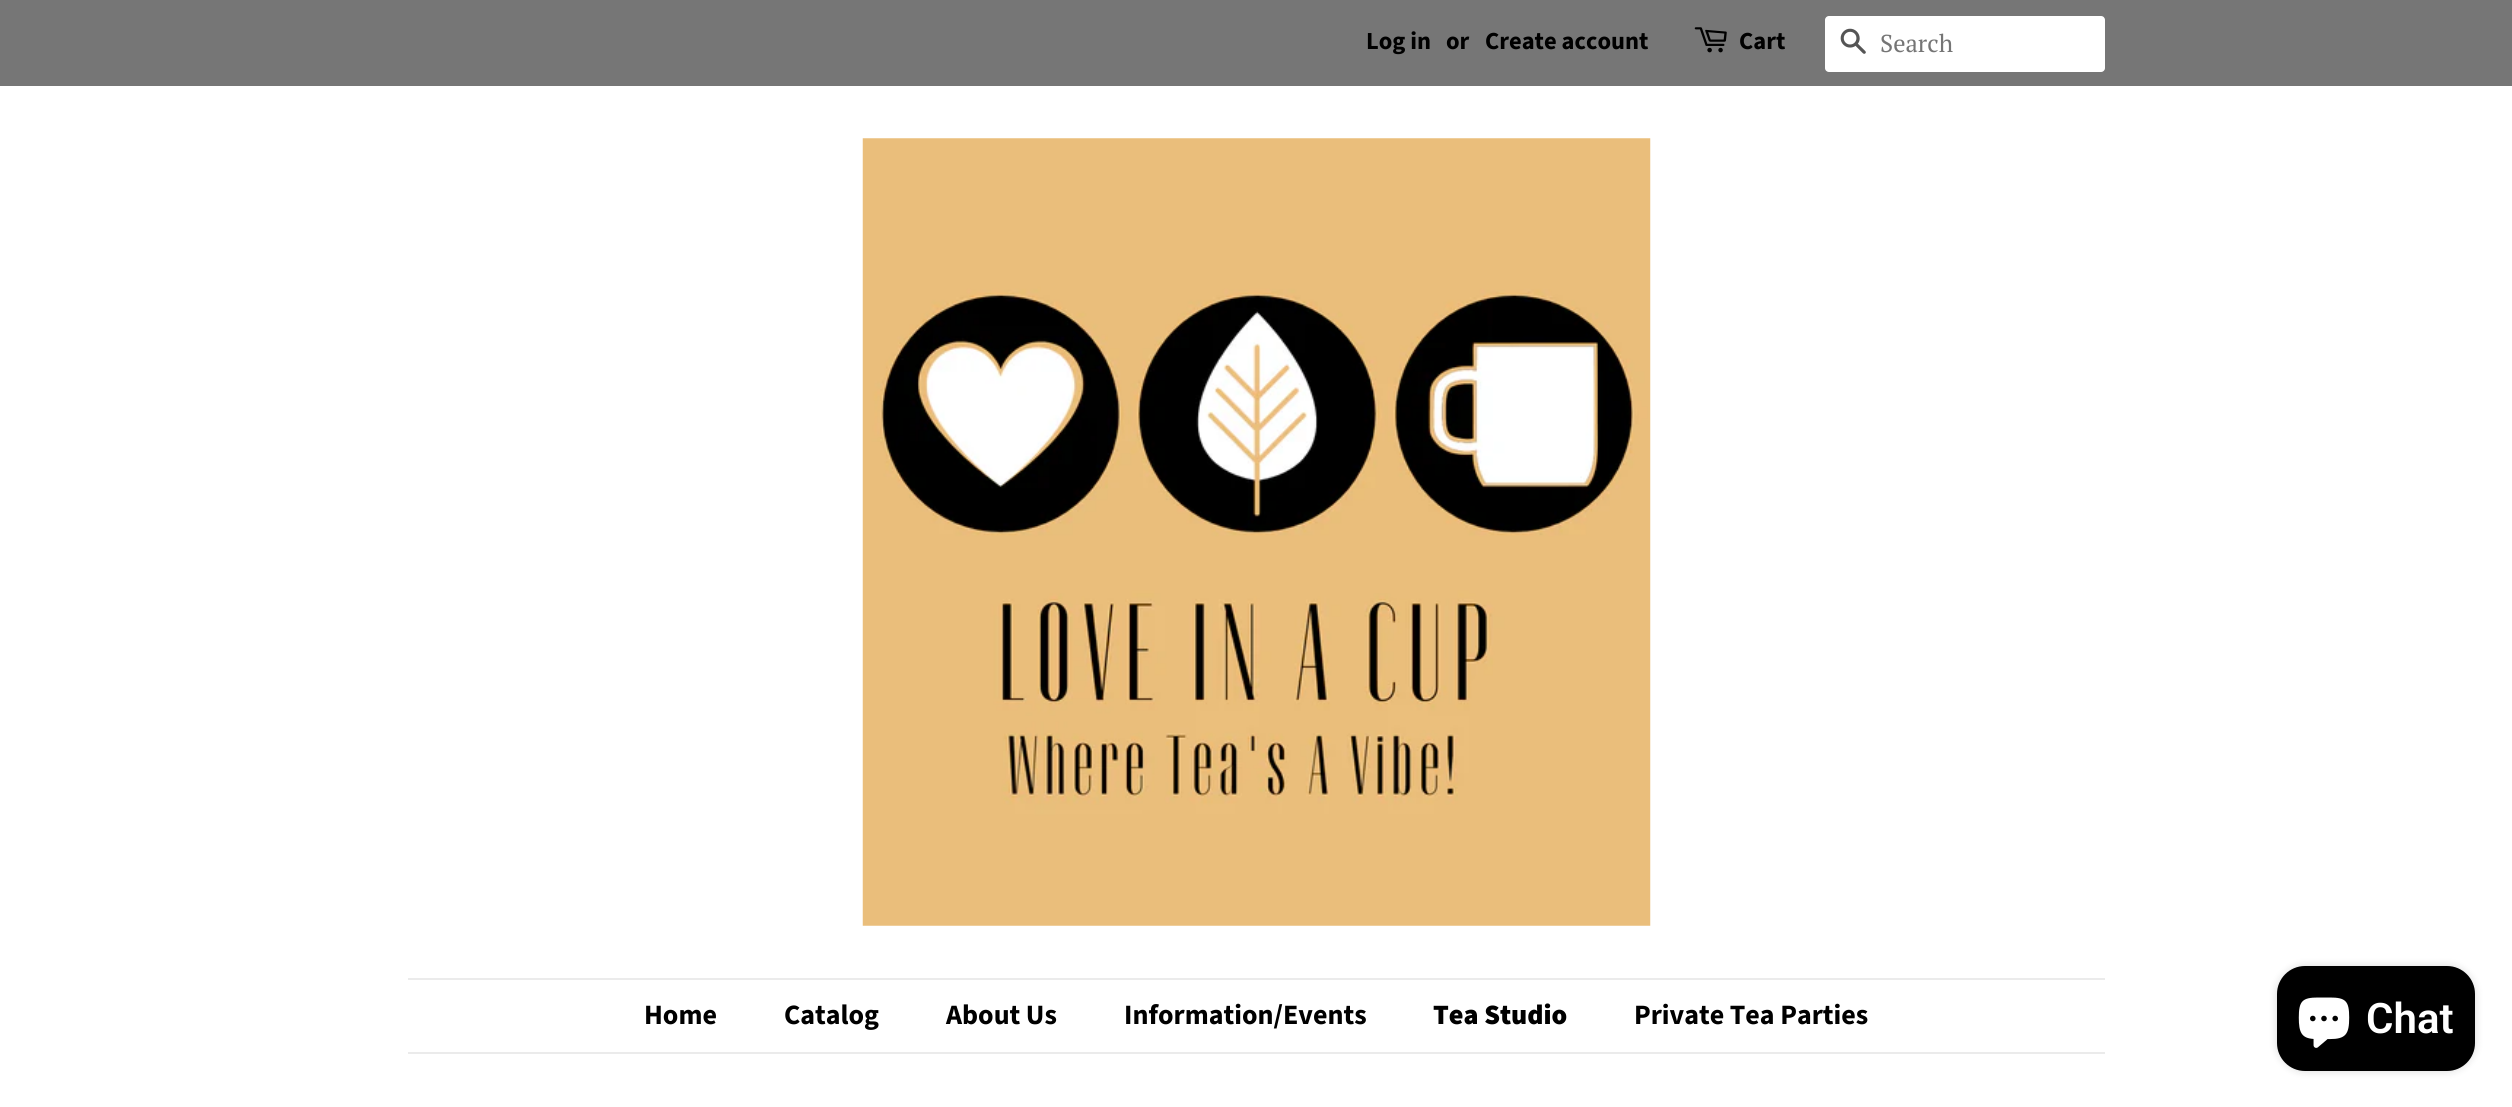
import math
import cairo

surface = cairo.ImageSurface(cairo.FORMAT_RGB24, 2512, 1107)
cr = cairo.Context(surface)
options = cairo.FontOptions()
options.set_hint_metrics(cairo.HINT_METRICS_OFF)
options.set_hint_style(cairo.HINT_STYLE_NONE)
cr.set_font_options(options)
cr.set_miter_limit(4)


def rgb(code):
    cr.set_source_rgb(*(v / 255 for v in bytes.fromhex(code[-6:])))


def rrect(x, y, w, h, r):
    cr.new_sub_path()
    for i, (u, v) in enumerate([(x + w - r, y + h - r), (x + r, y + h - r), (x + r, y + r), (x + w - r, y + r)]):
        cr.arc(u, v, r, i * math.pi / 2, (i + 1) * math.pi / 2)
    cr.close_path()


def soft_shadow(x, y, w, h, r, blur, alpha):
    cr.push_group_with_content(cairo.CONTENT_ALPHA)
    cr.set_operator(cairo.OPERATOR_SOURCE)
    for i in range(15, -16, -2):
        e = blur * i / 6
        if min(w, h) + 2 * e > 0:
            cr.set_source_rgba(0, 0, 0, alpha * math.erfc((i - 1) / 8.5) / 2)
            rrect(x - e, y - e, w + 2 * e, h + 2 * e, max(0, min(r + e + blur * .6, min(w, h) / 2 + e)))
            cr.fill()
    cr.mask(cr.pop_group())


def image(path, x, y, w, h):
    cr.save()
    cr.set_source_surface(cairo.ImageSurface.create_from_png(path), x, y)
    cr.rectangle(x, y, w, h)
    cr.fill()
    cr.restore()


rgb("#ffffff")
cr.paint()
rgb("#767676")
cr.rectangle(0, 0, 2512, 86)
cr.fill()
image("img/1.png", 1694, 27, 33, 26)
rgb("#ffffff")
rrect(1825, 16, 280, 56, 4)
cr.fill()
image("img/2.png", 1840, 28, 26, 26)
image("img/3.png", 862, 138, 789, 788)
rgb("#ebebeb")
cr.rectangle(408, 978, 1697, 2)
cr.fill()
cr.rectangle(408, 1052, 1697, 2)
cr.fill()
rgb("#000000")
soft_shadow(2277, 966, 198, 105, 28, 4.5, 0.15)
rgb("#000000")
rrect(2277, 966, 198, 105, 28)
cr.fill()
image("img/4.png", 2298, 997, 52, 51)
cr.select_font_face("Source Sans Pro", cairo.FONT_SLANT_NORMAL, cairo.FONT_WEIGHT_BOLD)
cr.set_font_size(24.5)
for x, y, s in [
    (1366, 49, "Log in"),
    (1446, 49, "or"),
    (1485, 49, "Create account"),
    (1739, 49, "Cart"),
]:
    cr.move_to(x, y)
    cr.show_text(s)
cr.select_font_face("PT Serif")
rgb("#757575")
cr.move_to(1880, 52)
cr.show_text("Search")
cr.select_font_face("Source Sans Pro", cairo.FONT_SLANT_NORMAL, cairo.FONT_WEIGHT_BOLD)
cr.set_font_size(28)
rgb("#000000")
for x, y, s in [
    (644, 1024, "Home"),
    (784, 1024, "Catalog"),
    (946, 1024, "About Us"),
    (1124, 1024, "Information/Events"),
]:
    cr.move_to(x, y)
    cr.show_text(s)
cr.select_font_face("Source Sans Pro Black")
cr.move_to(1433, 1024)
cr.show_text("Tea Studio")
cr.select_font_face("Source Sans Pro", cairo.FONT_SLANT_NORMAL, cairo.FONT_WEIGHT_BOLD)
cr.move_to(1634, 1024)
cr.show_text("Private Tea Parties")
cr.select_font_face("Roboto SemiBold")
cr.set_font_size(42)
rgb("#ffffff")
cr.move_to(2366, 1033)
cr.show_text("Chat")
surface.write_to_png("page.png")
